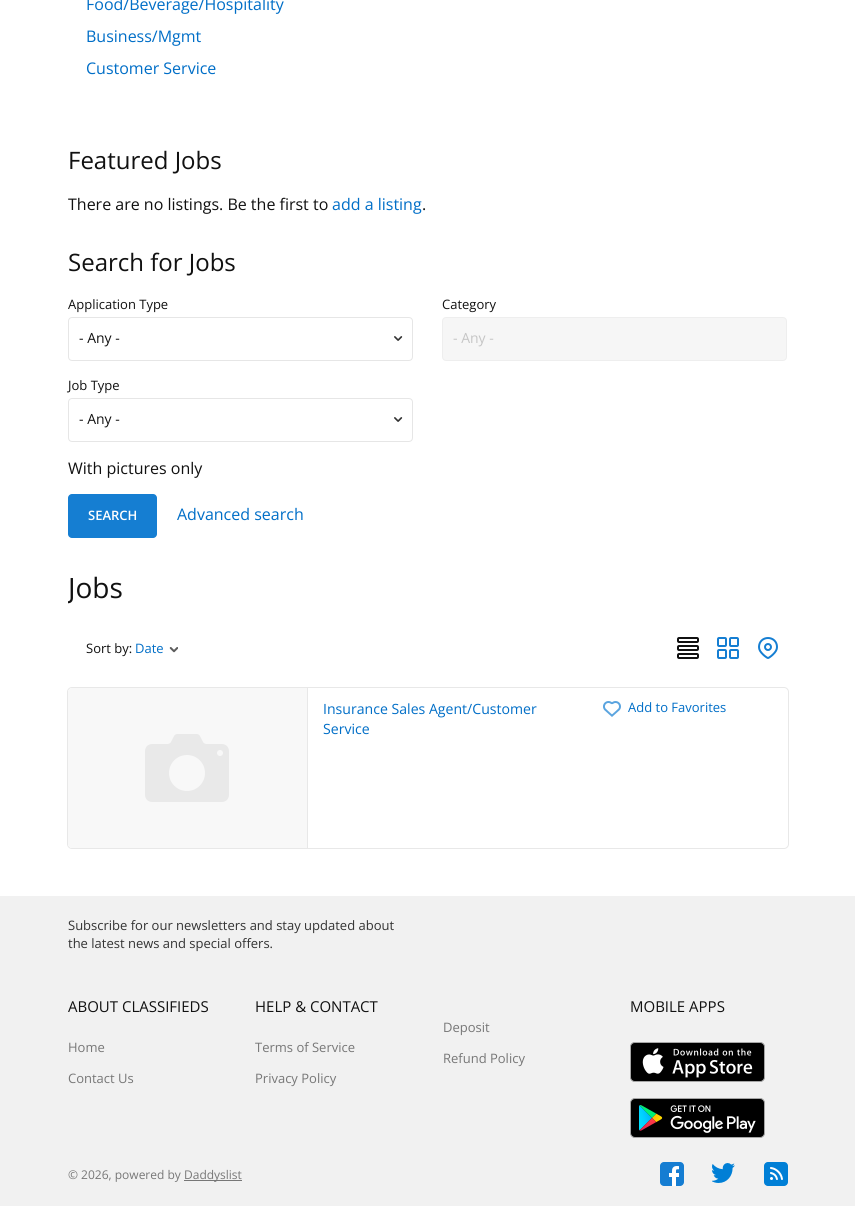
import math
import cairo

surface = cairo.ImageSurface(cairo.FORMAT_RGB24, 855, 1206)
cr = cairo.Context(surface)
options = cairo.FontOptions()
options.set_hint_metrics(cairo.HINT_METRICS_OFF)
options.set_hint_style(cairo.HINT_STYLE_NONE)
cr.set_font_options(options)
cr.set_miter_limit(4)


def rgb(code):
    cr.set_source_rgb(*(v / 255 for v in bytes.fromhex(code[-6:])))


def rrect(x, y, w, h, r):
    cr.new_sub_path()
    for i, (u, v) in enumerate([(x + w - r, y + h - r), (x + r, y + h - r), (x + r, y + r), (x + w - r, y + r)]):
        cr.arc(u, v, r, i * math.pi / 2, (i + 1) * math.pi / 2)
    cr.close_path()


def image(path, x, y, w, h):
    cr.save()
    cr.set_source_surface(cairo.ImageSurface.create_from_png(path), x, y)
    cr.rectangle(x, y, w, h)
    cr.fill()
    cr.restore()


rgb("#ffffff")
cr.paint()
image("img/1.png", 394, 336, 9, 5)
rrect(68.5, 317.5, 344, 43, 3.5)
rgb("#e6e6e6")
cr.set_line_width(1)
cr.stroke()
rgb("#f6f6f6")
rrect(442.5, 317.5, 344, 43, 3.5)
cr.fill_preserve()
rgb("#eeeeee")
cr.stroke()
image("img/1.png", 394, 417, 9, 5)
rrect(68.5, 398.5, 344, 43, 3.5)
rgb("#e6e6e6")
cr.stroke()
rgb("#157ed2")
rrect(68, 494, 89, 44, 4)
cr.fill()
image("img/2.png", 169, 647, 9, 6)
rrect(678, 638, 20, 4, 1)
rgb("#111111")
cr.set_line_width(2)
cr.stroke()
rrect(678, 646, 20, 4, 1)
cr.stroke()
rrect(678, 654, 20, 4, 1)
cr.stroke()
rrect(718, 638, 8, 8, 1)
rgb("#157ed2")
cr.stroke()
rrect(730, 638, 8, 8, 1)
cr.stroke()
rrect(718, 650, 8, 8, 1)
cr.stroke()
rrect(730, 650, 8, 8, 1)
cr.stroke()
image("img/3.png", 758, 637, 20, 22)
rrect(67.5, 687.5, 721, 161, 4.5)
rgb("#e8e8e8")
cr.set_line_width(1)
cr.stroke()
cr.rectangle(307, 688, 1, 160)
cr.fill()
rgb("#f8f8f8")
cr.new_path()
cr.move_to(72, 688)
cr.line_to(307, 688)
cr.line_to(307, 848)
cr.line_to(72, 848)
cr.curve_to(70, 848, 68, 846, 68, 844)
cr.line_to(68, 692)
cr.curve_to(68, 690, 70, 688, 72, 688)
cr.close_path()
cr.fill()
image("img/4.png", 145, 734, 84, 68)
image("img/5.png", 603, 701, 18, 16)
rgb("#f1f1f1")
cr.rectangle(0, 896, 855, 310)
cr.fill()
image("img/6.png", 630, 1042, 135, 40)
image("img/7.png", 630, 1098, 135, 40)
rgb("#777777")
cr.rectangle(184, 1180, 58, 1)
cr.fill()
rgb("#157dd2")
rrect(660, 1162, 24, 24, 4)
cr.fill()
image("img/8.png", 669, 1166, 10, 20)
image("img/9.png", 712, 1163, 23, 20)
rgb("#007fd6")
rrect(764, 1162, 24, 24, 4)
cr.fill()
image("img/10.png", 770, 1167, 13, 13)
cr.select_font_face("Open Sans")
cr.set_font_size(16)
rgb("#006ec7")
for x, y, s in [
    (86, 10, "Food/Beverage/Hospitality"),
    (86, 42, "Business/Mgmt"),
    (86, 74, "Customer Service"),
]:
    cr.move_to(x, y)
    cr.show_text(s)
cr.set_font_size(24)
rgb("#111111")
cr.move_to(68, 169)
cr.show_text("Featured Jobs")
cr.set_font_size(16)
cr.move_to(68, 210)
cr.show_text("There are no listings. Be the first to")
rgb("#006ec7")
cr.move_to(332, 210)
cr.show_text("add a listing")
rgb("#111111")
cr.move_to(422, 210)
cr.show_text(".")
cr.set_font_size(24)
cr.move_to(68, 271)
cr.show_text("Search for Jobs")
cr.set_font_size(13)
cr.move_to(68, 309)
cr.show_text("Application Type")
cr.set_font_size(14)
cr.move_to(79, 343)
cr.show_text("- Any -")
cr.set_font_size(13)
cr.move_to(442, 309)
cr.show_text("Category")
cr.set_font_size(14)
rgb("#c5c5c5")
cr.move_to(453, 343)
cr.show_text("- Any -")
cr.set_font_size(13)
rgb("#111111")
cr.move_to(68, 390)
cr.show_text("Job Type")
cr.set_font_size(14)
cr.move_to(79, 424)
cr.show_text("- Any -")
cr.set_font_size(16)
cr.move_to(68, 474)
cr.show_text("With pictures only")
cr.select_font_face("Open Sans SemiBold")
cr.set_font_size(13)
rgb("#ffffff")
cr.move_to(88, 520)
cr.show_text("SEARCH")
cr.select_font_face("Open Sans")
cr.set_font_size(16)
rgb("#006ec7")
cr.move_to(177, 520)
cr.show_text("Advanced search")
cr.save()
cr.rectangle(68, 568, 720, 38)
cr.clip()
cr.set_font_size(28)
rgb("#111111")
cr.move_to(68, 598)
cr.show_text("Jobs")
cr.restore()
cr.set_font_size(13)
rgb("#111111")
cr.move_to(86, 653)
cr.show_text("Sort by:")
rgb("#006ec7")
cr.move_to(135, 653)
cr.show_text("Date")
cr.set_font_size(14.1)
cr.move_to(323, 714)
cr.show_text("Insurance Sales Agent/Customer")
cr.move_to(323, 734)
cr.show_text("Service")
cr.set_font_size(13)
cr.move_to(628, 712)
cr.show_text("Add to Favorites")
rgb("#333333")
cr.move_to(68, 930)
cr.show_text("Subscribe for our newsletters and stay updated about")
cr.move_to(68, 948)
cr.show_text("the latest news and special offers.")
cr.set_font_size(15)
rgb("#111111")
cr.move_to(68, 1012)
cr.show_text("ABOUT CLASSIFIEDS")
cr.set_font_size(13)
rgb("#777777")
cr.move_to(68, 1052)
cr.show_text("Home")
cr.move_to(68, 1083)
cr.show_text("Contact Us")
cr.set_font_size(15)
rgb("#111111")
cr.move_to(255, 1012)
cr.show_text("HELP & CONTACT")
cr.set_font_size(13)
rgb("#777777")
cr.move_to(255, 1052)
cr.show_text("Terms of Service")
cr.move_to(255, 1083)
cr.show_text("Privacy Policy")
cr.set_font_size(15)
rgb("#111111")
cr.move_to(630, 1012)
cr.show_text("MOBILE APPS")
cr.set_font_size(13)
rgb("#777777")
cr.move_to(443, 1032)
cr.show_text("Deposit")
cr.move_to(443, 1063)
cr.show_text("Refund Policy")
cr.set_font_size(12)
cr.move_to(68, 1179)
cr.show_text("© 2026, powered by")
cr.move_to(184, 1179)
cr.show_text("Daddyslist")
surface.write_to_png("page.png")
